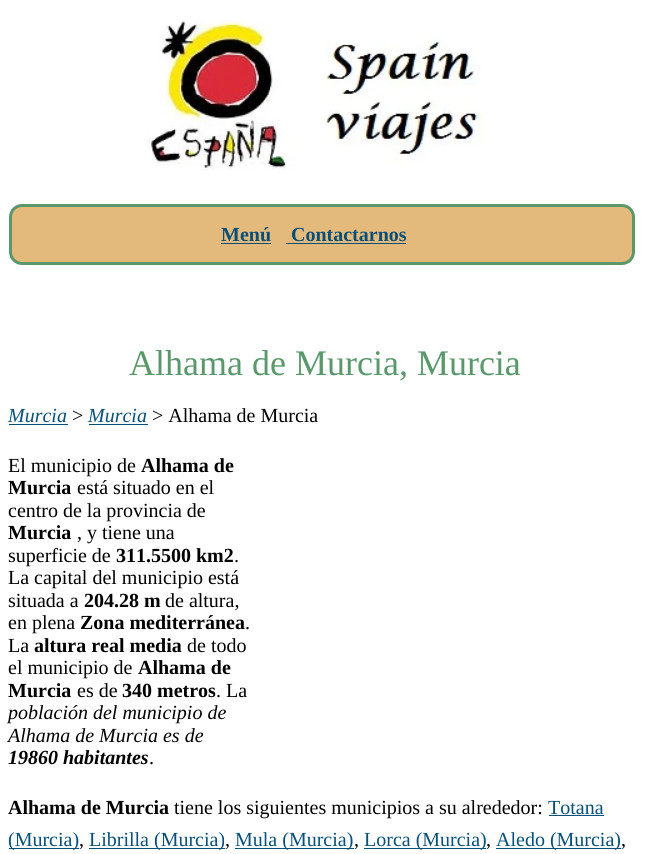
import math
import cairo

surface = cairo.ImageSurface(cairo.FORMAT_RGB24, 653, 854)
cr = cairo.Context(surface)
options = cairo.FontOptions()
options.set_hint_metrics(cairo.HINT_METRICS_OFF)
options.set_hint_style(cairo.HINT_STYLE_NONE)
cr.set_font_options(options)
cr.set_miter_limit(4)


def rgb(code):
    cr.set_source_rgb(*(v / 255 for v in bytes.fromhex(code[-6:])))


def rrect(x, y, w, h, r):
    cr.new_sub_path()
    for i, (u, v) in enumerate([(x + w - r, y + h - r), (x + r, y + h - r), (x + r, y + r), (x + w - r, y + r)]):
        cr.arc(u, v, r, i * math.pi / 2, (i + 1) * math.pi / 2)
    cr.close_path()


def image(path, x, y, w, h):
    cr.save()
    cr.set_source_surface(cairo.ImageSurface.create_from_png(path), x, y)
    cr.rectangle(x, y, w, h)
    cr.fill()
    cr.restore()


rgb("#ffffff")
cr.paint()
image("img/1.png", 145, 19, 339, 151)
rgb("#e4b97c")
rrect(10.5, 205.5, 623, 58, 11.5)
cr.fill_preserve()
rgb("#5a986c")
cr.set_line_width(3)
cr.stroke()
for x, y, w, h, color in [
    (221, 243, 50, 1, "#064f78"),
    (286, 243, 120, 1, "#064f78"),
    (9, 424, 59, 1, "#064f78"),
    (89, 424, 59, 1, "#064f78"),
    (549, 815, 55, 1, "#064f78"),
    (9, 848, 70, 1, "#064f78"),
    (89, 848, 136, 1, "#064f78"),
    (235, 848, 119, 1, "#064f78"),
    (364, 848, 122, 1, "#064f78"),
    (496, 848, 125, 1, "#064f78"),
]:
    rgb(color)
    cr.rectangle(x, y, w, h)
    cr.fill()
cr.select_font_face("Liberation Serif", cairo.FONT_SLANT_NORMAL, cairo.FONT_WEIGHT_BOLD)
cr.set_font_size(20)
cr.move_to(221, 241)
cr.show_text("Menú")
cr.move_to(291, 241)
cr.show_text("Contactarnos")
cr.select_font_face("Liberation Serif")
cr.set_font_size(36)
rgb("#5a986c")
cr.move_to(129, 375)
cr.show_text("Alhama de Murcia, Murcia")
cr.select_font_face("Liberation Serif", cairo.FONT_SLANT_ITALIC)
cr.set_font_size(20)
rgb("#064f78")
cr.move_to(8, 422)
cr.show_text("Murcia")
cr.select_font_face("Liberation Serif")
rgb("#000000")
cr.move_to(72, 422)
cr.show_text(">")
cr.select_font_face("Liberation Serif", cairo.FONT_SLANT_ITALIC)
rgb("#064f78")
cr.move_to(88, 422)
cr.show_text("Murcia")
cr.select_font_face("Liberation Serif")
rgb("#000000")
cr.move_to(152, 422)
cr.show_text("> Alhama de Murcia")
cr.move_to(8, 472)
cr.show_text("El municipio de")
cr.select_font_face("Liberation Serif", cairo.FONT_SLANT_NORMAL, cairo.FONT_WEIGHT_BOLD)
cr.move_to(141, 472)
cr.show_text("Alhama de")
cr.move_to(8, 494)
cr.show_text("Murcia")
cr.select_font_face("Liberation Serif")
cr.move_to(77, 494)
cr.show_text("está situado en el")
cr.move_to(8, 517)
cr.show_text("centro de la provincia de")
cr.select_font_face("Liberation Serif", cairo.FONT_SLANT_NORMAL, cairo.FONT_WEIGHT_BOLD)
cr.move_to(8, 539)
cr.show_text("Murcia")
cr.select_font_face("Liberation Serif")
cr.move_to(77, 539)
cr.show_text(", y tiene una")
cr.move_to(8, 562)
cr.show_text("superficie de")
cr.select_font_face("Liberation Serif", cairo.FONT_SLANT_NORMAL, cairo.FONT_WEIGHT_BOLD)
cr.move_to(116, 562)
cr.show_text("311.5500 km2")
cr.select_font_face("Liberation Serif")
for x, y, s in [
    (234, 562, "."),
    (8, 584, "La capital del municipio está"),
    (8, 607, "situada a"),
]:
    cr.move_to(x, y)
    cr.show_text(s)
cr.select_font_face("Liberation Serif", cairo.FONT_SLANT_NORMAL, cairo.FONT_WEIGHT_BOLD)
cr.move_to(84, 607)
cr.show_text("204.28 m")
cr.select_font_face("Liberation Serif")
cr.move_to(165, 607)
cr.show_text("de altura,")
cr.move_to(8, 629)
cr.show_text("en plena")
cr.select_font_face("Liberation Serif", cairo.FONT_SLANT_NORMAL, cairo.FONT_WEIGHT_BOLD)
cr.move_to(80, 629)
cr.show_text("Zona mediterránea")
cr.select_font_face("Liberation Serif")
cr.move_to(245, 629)
cr.show_text(".")
cr.move_to(8, 652)
cr.show_text("La")
cr.select_font_face("Liberation Serif", cairo.FONT_SLANT_NORMAL, cairo.FONT_WEIGHT_BOLD)
cr.move_to(34, 652)
cr.show_text("altura real media")
cr.select_font_face("Liberation Serif")
cr.move_to(187, 652)
cr.show_text("de todo")
cr.move_to(8, 674)
cr.show_text("el municipio de")
cr.select_font_face("Liberation Serif", cairo.FONT_SLANT_NORMAL, cairo.FONT_WEIGHT_BOLD)
cr.move_to(138, 674)
cr.show_text("Alhama de")
cr.move_to(8, 697)
cr.show_text("Murcia")
cr.select_font_face("Liberation Serif")
cr.move_to(77, 697)
cr.show_text("es de")
cr.select_font_face("Liberation Serif", cairo.FONT_SLANT_NORMAL, cairo.FONT_WEIGHT_BOLD)
cr.move_to(122, 697)
cr.show_text("340 metros")
cr.select_font_face("Liberation Serif")
cr.move_to(216, 697)
cr.show_text(". La")
cr.select_font_face("Liberation Serif", cairo.FONT_SLANT_ITALIC)
cr.move_to(8, 719)
cr.show_text("población del municipio de")
cr.move_to(8, 742)
cr.show_text("Alhama de Murcia es de")
cr.select_font_face("Liberation Serif", cairo.FONT_SLANT_ITALIC, cairo.FONT_WEIGHT_BOLD)
cr.move_to(8, 764)
cr.show_text("19860 habitantes")
cr.select_font_face("Liberation Serif")
cr.move_to(149, 764)
cr.show_text(".")
cr.select_font_face("Liberation Serif", cairo.FONT_SLANT_NORMAL, cairo.FONT_WEIGHT_BOLD)
cr.move_to(8, 814)
cr.show_text("Alhama de Murcia")
cr.select_font_face("Liberation Serif")
cr.move_to(174, 814)
cr.show_text("tiene los siguientes municipios a su alrededor:")
rgb("#064f78")
cr.move_to(548, 814)
cr.show_text("Totana")
cr.move_to(8, 846)
cr.show_text("(Murcia)")
rgb("#000000")
cr.move_to(79, 846)
cr.show_text(",")
rgb("#064f78")
cr.move_to(89, 846)
cr.show_text("Librilla (Murcia)")
rgb("#000000")
cr.move_to(225, 846)
cr.show_text(",")
rgb("#064f78")
cr.move_to(235, 846)
cr.show_text("Mula (Murcia)")
rgb("#000000")
cr.move_to(354, 846)
cr.show_text(",")
rgb("#064f78")
cr.move_to(364, 846)
cr.show_text("Lorca (Murcia)")
rgb("#000000")
cr.move_to(486, 846)
cr.show_text(",")
rgb("#064f78")
cr.move_to(496, 846)
cr.show_text("Aledo (Murcia)")
rgb("#000000")
cr.move_to(621, 846)
cr.show_text(",")
surface.write_to_png("page.png")
